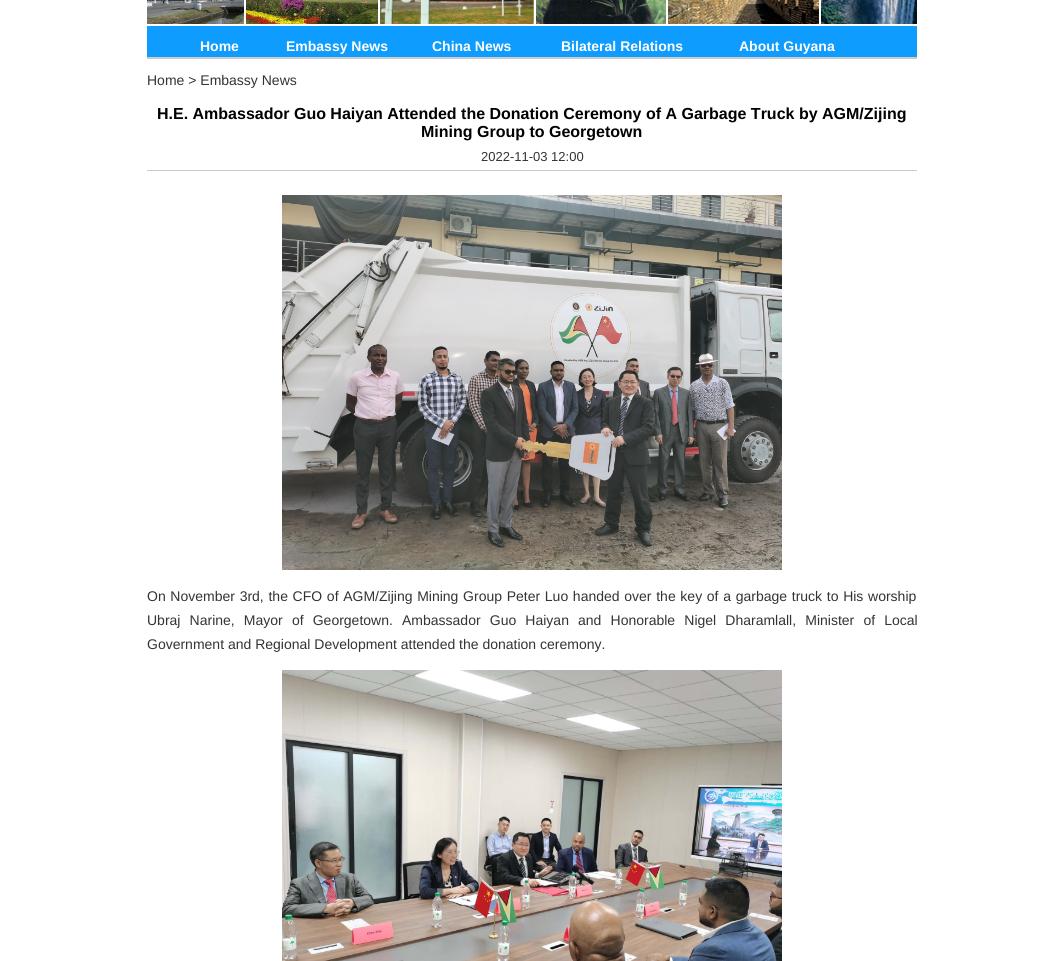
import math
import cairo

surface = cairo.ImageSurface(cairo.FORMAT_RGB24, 1064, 961)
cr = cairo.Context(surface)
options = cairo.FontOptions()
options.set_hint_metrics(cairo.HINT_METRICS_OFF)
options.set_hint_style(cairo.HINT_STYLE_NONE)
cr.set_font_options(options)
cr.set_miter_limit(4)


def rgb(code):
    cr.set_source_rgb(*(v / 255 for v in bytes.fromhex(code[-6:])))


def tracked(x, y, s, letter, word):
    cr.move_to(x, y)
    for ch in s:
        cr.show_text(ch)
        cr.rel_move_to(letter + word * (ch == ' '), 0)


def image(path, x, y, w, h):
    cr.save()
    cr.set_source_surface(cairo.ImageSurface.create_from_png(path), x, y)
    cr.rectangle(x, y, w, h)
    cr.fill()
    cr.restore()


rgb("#ffffff")
cr.paint()
image("img/1.png", 147, 0, 770, 24)
for x, y, w, h, color in [
    (147, 26, 770, 31, "#0e9cfe"),
    (147, 57, 770, 2, "#cccccc"),
    (147, 170, 770, 1, "#cccccc"),
]:
    rgb(color)
    cr.rectangle(x, y, w, h)
    cr.fill()
image("img/2.png", 282, 195, 500, 375)
image("img/3.png", 282, 670, 500, 291)
cr.select_font_face("Liberation Sans", cairo.FONT_SLANT_NORMAL, cairo.FONT_WEIGHT_BOLD)
cr.set_font_size(14)
rgb("#ffffff")
for x, y, s in [
    (200, 51, "Home"),
    (286, 51, "Embassy News"),
    (432, 51, "China News"),
    (561, 51, "Bilateral Relations"),
    (739, 51, "About Guyana"),
]:
    cr.move_to(x, y)
    cr.show_text(s)
cr.select_font_face("Liberation Sans")
rgb("#333333")
cr.move_to(147, 85)
cr.show_text("Home > Embassy News")
cr.select_font_face("Liberation Sans", cairo.FONT_SLANT_NORMAL, cairo.FONT_WEIGHT_BOLD)
cr.set_font_size(16)
rgb("#000000")
cr.move_to(157, 119)
cr.show_text("H.E. Ambassador Guo Haiyan Attended the Donation Ceremony of A Garbage Truck by AGM/Zijing")
cr.move_to(421, 137)
cr.show_text("Mining Group to Georgetown")
cr.select_font_face("Liberation Sans")
cr.set_font_size(13)
rgb("#333333")
cr.move_to(481, 161)
cr.show_text("2022-11-03 12:00")
cr.set_font_size(14)
tracked(147, 601, "On November 3rd, the CFO of AGM/Zijing Mining Group Peter Luo handed over the key of a garbage truck to His worship", 0, 0.8)
tracked(147, 625, "Ubraj Narine, Mayor of Georgetown. Ambassador Guo Haiyan and Honorable Nigel Dharamlall, Minister of Local", 0, 5.25)
cr.move_to(147, 649)
cr.show_text("Government and Regional Development attended the donation ceremony.")
surface.write_to_png("page.png")
